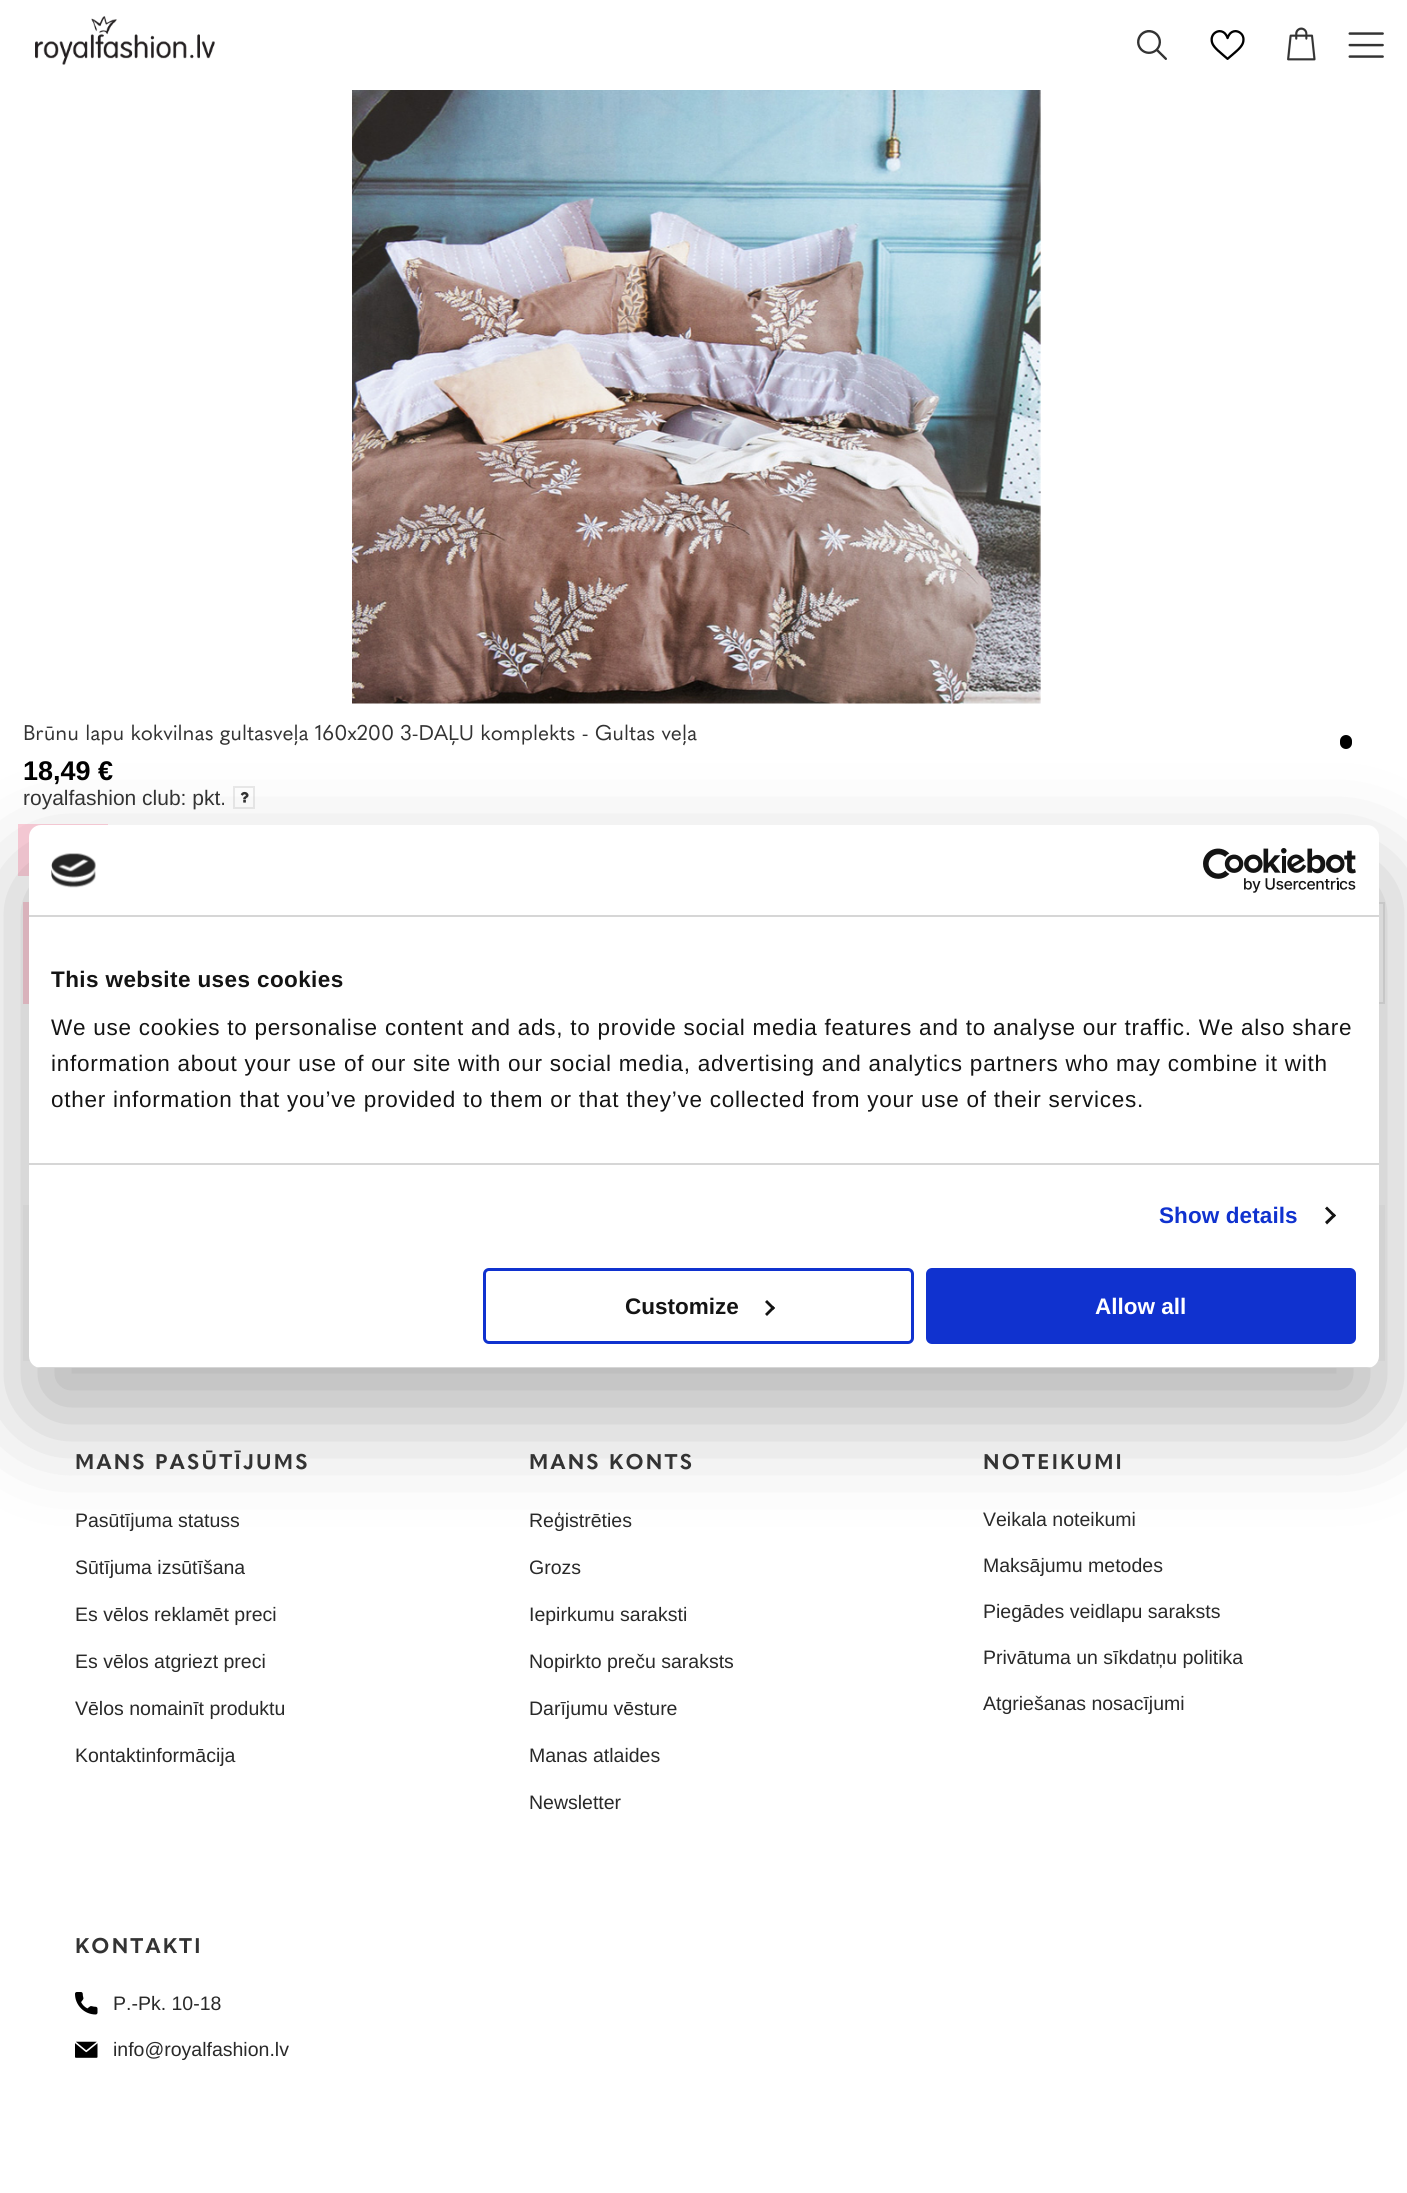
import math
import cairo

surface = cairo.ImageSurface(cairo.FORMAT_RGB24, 1407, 2193)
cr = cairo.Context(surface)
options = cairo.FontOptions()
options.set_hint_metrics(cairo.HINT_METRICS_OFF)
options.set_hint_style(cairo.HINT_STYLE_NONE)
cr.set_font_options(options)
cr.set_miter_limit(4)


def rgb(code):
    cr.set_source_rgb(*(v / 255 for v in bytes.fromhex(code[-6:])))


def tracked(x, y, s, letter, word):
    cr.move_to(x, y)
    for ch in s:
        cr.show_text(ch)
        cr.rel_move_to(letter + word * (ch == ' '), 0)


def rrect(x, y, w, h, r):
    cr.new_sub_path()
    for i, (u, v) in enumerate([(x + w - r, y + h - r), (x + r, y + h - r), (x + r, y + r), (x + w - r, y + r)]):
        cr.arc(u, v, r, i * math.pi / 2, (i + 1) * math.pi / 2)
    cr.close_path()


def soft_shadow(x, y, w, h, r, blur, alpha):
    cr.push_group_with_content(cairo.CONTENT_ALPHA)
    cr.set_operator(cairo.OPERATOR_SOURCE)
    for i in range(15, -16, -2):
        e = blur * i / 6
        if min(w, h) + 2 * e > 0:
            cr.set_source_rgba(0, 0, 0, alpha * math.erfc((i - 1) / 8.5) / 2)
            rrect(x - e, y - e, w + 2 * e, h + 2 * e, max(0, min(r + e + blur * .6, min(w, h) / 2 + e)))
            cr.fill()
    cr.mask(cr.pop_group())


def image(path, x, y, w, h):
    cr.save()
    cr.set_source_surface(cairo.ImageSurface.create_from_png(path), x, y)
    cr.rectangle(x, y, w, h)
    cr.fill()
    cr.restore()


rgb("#ffffff")
cr.paint()
image("img/1.png", 35, 16, 180, 49)
image("img/2.png", 1137, 30, 30, 30)
image("img/3.png", 1210, 30, 35, 30)
image("img/4.png", 1287, 27, 29, 34)
image("img/5.png", 1348, 32, 36, 26)
image("img/6.png", 352, 90, 689, 614)
rgb("#000000")
rrect(1340, 735, 12, 14, 6)
cr.fill()
cr.rectangle(234, 787, 20, 21)
rgb("#eaeaea")
cr.stroke()
image("img/7.png", 240, 791, 9, 12)
rgb("#ffd1dc")
cr.rectangle(18, 824, 90, 52)
cr.fill()
cr.rectangle(23, 902, 6, 102)
cr.fill()
cr.rectangle(1305, 903, 79, 100)
rgb("#eaeaea")
cr.stroke()
rgb("#f8f8f8")
cr.rectangle(23, 1205, 1362, 156)
cr.fill()
rgb("#000000")
soft_shadow(29, 873, 1350, 543, 12, 51, 0.3)
rgb("#ffffff")
rrect(29, 825, 1350, 543, 12)
cr.fill()
rgb("#d6d6d6")
cr.rectangle(29, 915, 1350, 2)
cr.fill()
image("img/8.png", 51, 853, 45, 35)
image("img/9.png", 1203, 848, 153, 45)
cr.rectangle(29, 1163, 1350, 2)
cr.fill()
rgb("#141414")
cr.new_path()
cr.move_to(1327, 1206.5)
cr.line_to(1336, 1215.5)
cr.line_to(1334, 1217.5)
cr.line_to(1325, 1208.5)
cr.close_path()
cr.fill()
cr.new_path()
cr.move_to(1334, 1213.5)
cr.line_to(1336, 1215.5)
cr.line_to(1327, 1224.5)
cr.line_to(1325, 1222)
cr.close_path()
cr.fill()
cr.save()
rrect(29, 825, 1350, 543, 12)
cr.clip()
rgb("#d6d6d6")
cr.rectangle(29, 1367, 1350, 1)
cr.fill()
cr.restore()
rrect(484.5, 1269.5, 428, 73, 4.5)
rgb("#1032cf")
cr.set_line_width(3)
cr.stroke()
rgb("#141414")
cr.new_path()
cr.move_to(767, 1300)
cr.line_to(775, 1308)
cr.line_to(773, 1310)
cr.line_to(765, 1302)
cr.close_path()
cr.fill()
cr.new_path()
cr.move_to(773, 1306)
cr.line_to(775, 1308)
cr.line_to(767, 1316)
cr.line_to(765, 1314)
cr.close_path()
cr.fill()
rgb("#1032cf")
rrect(927.5, 1269.5, 427, 73, 4.5)
cr.fill_preserve()
cr.stroke()
image("img/10.png", 75, 1992, 23, 23)
image("img/11.png", 75, 2041, 23, 17)
cr.select_font_face("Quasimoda")
cr.set_font_size(21)
rgb("#333333")
cr.move_to(23, 740)
cr.show_text("Brūnu lapu kokvilnas gultasveļa 160x200 3-DAĻU komplekts - Gultas veļa")
cr.select_font_face("Liberation Sans", cairo.FONT_SLANT_NORMAL, cairo.FONT_WEIGHT_BOLD)
cr.set_font_size(27)
rgb("#000000")
cr.move_to(23, 780)
cr.show_text("18,49 €")
cr.select_font_face("Liberation Sans")
cr.set_font_size(21)
rgb("#333333")
cr.move_to(23, 805)
cr.show_text("royalfashion club: pkt.")
cr.select_font_face("Liberation Sans", cairo.FONT_SLANT_NORMAL, cairo.FONT_WEIGHT_BOLD)
cr.set_font_size(22.5)
rgb("#141414")
tracked(51, 987, "This website uses cookies", 0.4, 0)
cr.select_font_face("Liberation Sans")
for x, y, s in [
    (51, 1035, "We use cookies to personalise content and ads, to provide social media features and to analyse our traffic. We also share"),
    (51, 1071, "information about your use of our site with our social media, advertising and analytics partners who may combine it with"),
    (51, 1107, "other information that you’ve provided to them or that they’ve collected from your use of their services."),
]:
    tracked(x, y, s, 0.75, 0)
cr.select_font_face("Liberation Sans", cairo.FONT_SLANT_NORMAL, cairo.FONT_WEIGHT_BOLD)
rgb("#1032cf")
tracked(1159, 1223, "Show details", 0.1, 0)
rgb("#141414")
cr.move_to(625, 1314)
cr.show_text("Customize")
rgb("#ffffff")
cr.move_to(1095, 1314)
cr.show_text("Allow all")
cr.select_font_face("Quasimoda", cairo.FONT_SLANT_NORMAL, cairo.FONT_WEIGHT_BOLD)
cr.set_font_size(21)
rgb("#333333")
tracked(75, 1469, "MANS PASŪTĪJUMS", 2.25, 0)
cr.select_font_face("Liberation Sans")
cr.set_font_size(19.5)
rgb("#292929")
for x, y, s in [
    (75, 1527, "Pasūtījuma statuss"),
    (75, 1574, "Sūtījuma izsūtīšana"),
    (75, 1621, "Es vēlos reklamēt preci"),
    (75, 1668, "Es vēlos atgriezt preci"),
    (75, 1715, "Vēlos nomainīt produktu"),
    (75, 1762, "Kontaktinformācija"),
]:
    cr.move_to(x, y)
    cr.show_text(s)
cr.select_font_face("Quasimoda", cairo.FONT_SLANT_NORMAL, cairo.FONT_WEIGHT_BOLD)
cr.set_font_size(21)
rgb("#333333")
tracked(529, 1469, "MANS KONTS", 2.25, 0)
cr.select_font_face("Liberation Sans")
cr.set_font_size(19.5)
rgb("#292929")
for x, y, s in [
    (529, 1527, "Reģistrēties"),
    (529, 1574, "Grozs"),
    (529, 1621, "Iepirkumu saraksti"),
    (529, 1668, "Nopirkto preču saraksts"),
    (529, 1715, "Darījumu vēsture"),
    (529, 1762, "Manas atlaides"),
    (529, 1809, "Newsletter"),
]:
    cr.move_to(x, y)
    cr.show_text(s)
cr.select_font_face("Quasimoda", cairo.FONT_SLANT_NORMAL, cairo.FONT_WEIGHT_BOLD)
cr.set_font_size(21)
rgb("#333333")
tracked(983, 1469, "NOTEIKUMI", 2.25, 0)
cr.select_font_face("Liberation Sans")
cr.set_font_size(19.5)
rgb("#292929")
for x, y, s in [
    (983, 1526, "Veikala noteikumi"),
    (983, 1572, "Maksājumu metodes"),
    (983, 1618, "Piegādes veidlapu saraksts"),
    (983, 1664, "Privātuma un sīkdatņu politika"),
    (983, 1710, "Atgriešanas nosacījumi"),
]:
    cr.move_to(x, y)
    cr.show_text(s)
cr.select_font_face("Quasimoda", cairo.FONT_SLANT_NORMAL, cairo.FONT_WEIGHT_BOLD)
cr.set_font_size(21)
rgb("#333333")
tracked(75, 1953, "KONTAKTI", 2.25, 0)
cr.select_font_face("Liberation Sans")
cr.set_font_size(19.5)
rgb("#292929")
cr.move_to(113, 2010)
cr.show_text("P.-Pk. 10-18")
cr.move_to(113, 2056)
cr.show_text("info@royalfashion.lv")
surface.write_to_png("page.png")
